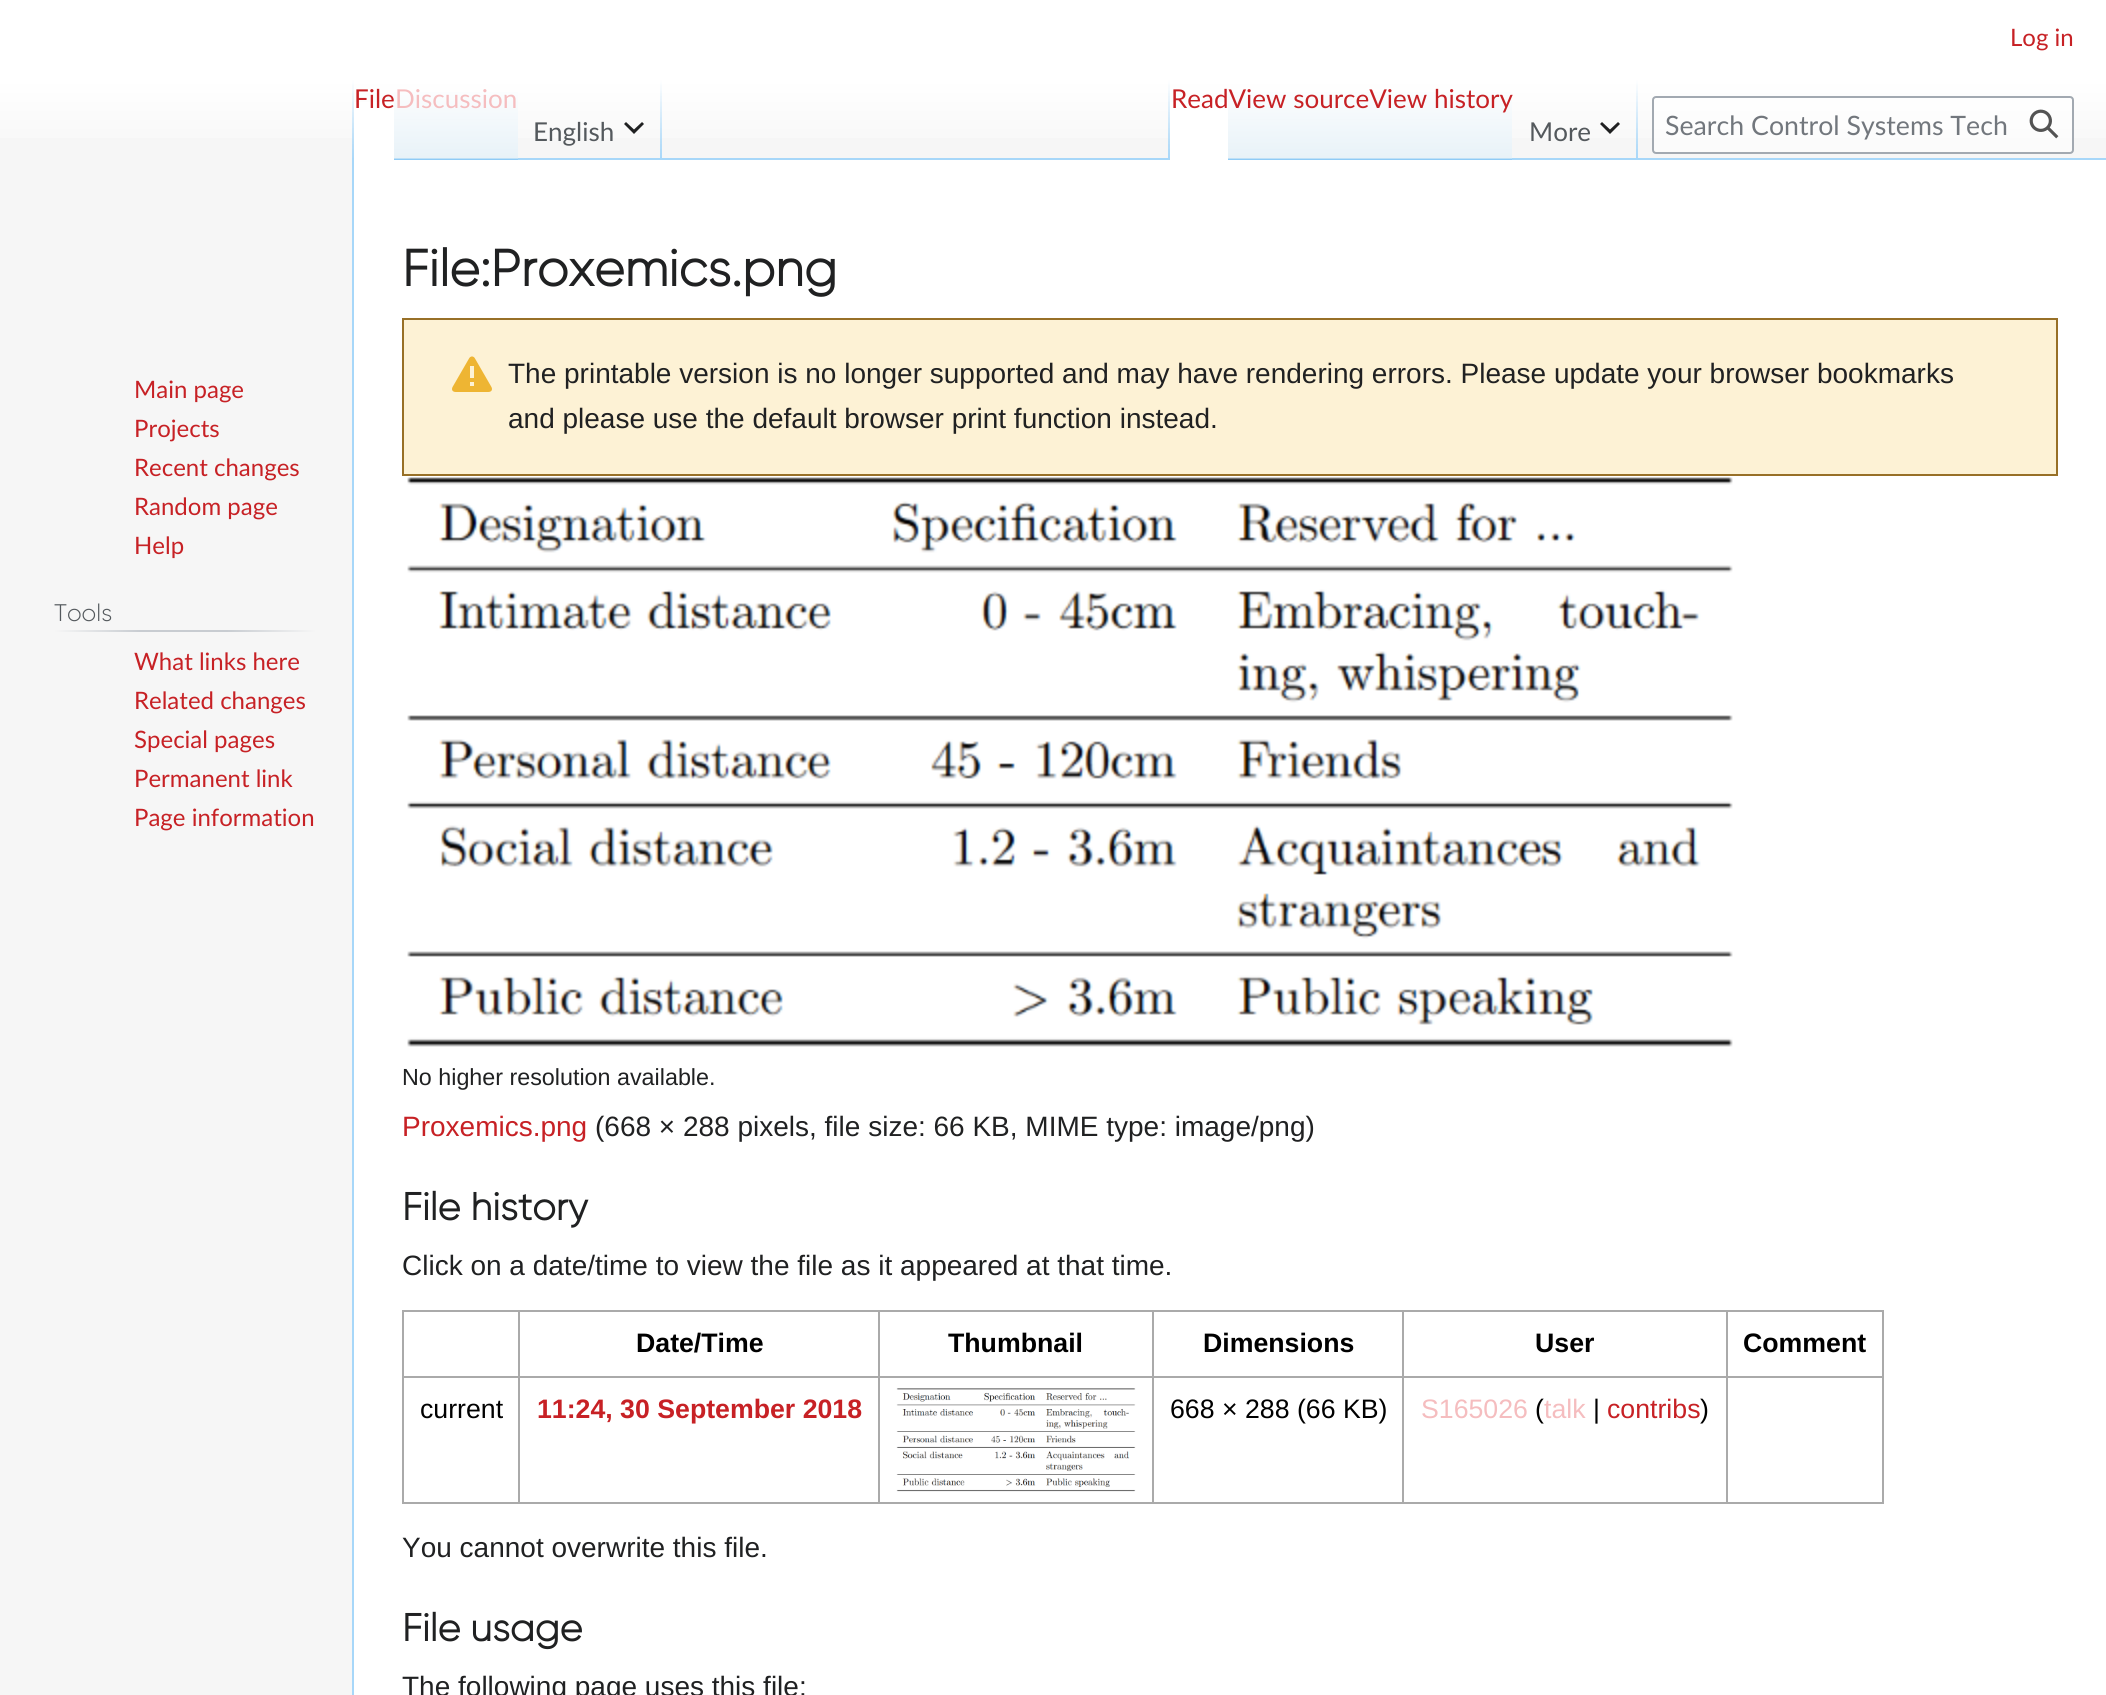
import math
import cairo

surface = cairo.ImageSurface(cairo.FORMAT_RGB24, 2106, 1695)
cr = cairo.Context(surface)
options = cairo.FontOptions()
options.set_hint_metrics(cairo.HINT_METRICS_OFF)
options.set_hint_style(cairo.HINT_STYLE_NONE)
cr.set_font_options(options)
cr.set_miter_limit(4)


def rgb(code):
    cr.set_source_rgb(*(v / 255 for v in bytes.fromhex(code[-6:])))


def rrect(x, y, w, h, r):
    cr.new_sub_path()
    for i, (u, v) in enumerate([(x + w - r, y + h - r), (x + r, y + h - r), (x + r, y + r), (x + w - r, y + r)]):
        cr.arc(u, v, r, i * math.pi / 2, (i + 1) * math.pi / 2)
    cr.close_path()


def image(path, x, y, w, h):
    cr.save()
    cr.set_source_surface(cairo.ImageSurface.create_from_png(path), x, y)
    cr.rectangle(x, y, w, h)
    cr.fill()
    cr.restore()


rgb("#f6f6f6")
cr.paint()
gradient = cairo.LinearGradient(1053, 0, 1053, 160)
gradient.add_color_stop_rgba(0.5, 1, 1, 1, 1)
gradient.add_color_stop_rgba(1, 0.965, 0.965, 0.965, 1)
cr.set_source(gradient)
cr.rectangle(0, 0, 2106, 138)
cr.fill()
rgb("#a7d7f9")
cr.rectangle(352, 158, 2, 1537)
cr.fill()
gradient = cairo.LinearGradient(353, 80, 353, 160)
gradient.add_color_stop_rgba(0, 0.655, 0.843, 0.976, 0)
gradient.add_color_stop_rgba(1, 0.655, 0.843, 0.976, 1)
cr.set_source(gradient)
cr.rectangle(352, 80, 2, 80)
cr.fill()
rgb("#ffffff")
cr.rectangle(354, 102, 40, 58)
cr.fill()
gradient = cairo.LinearGradient(456, 160, 456, 80)
gradient.add_color_stop_rgba(0, 0.467, 0.757, 0.965, 1)
gradient.add_color_stop_rgba(0.03, 0.91, 0.949, 0.973, 1)
gradient.add_color_stop_rgba(1, 1, 1, 1, 1)
cr.set_source(gradient)
cr.rectangle(394, 92, 124, 68)
cr.fill()
rgb("#a7d7f9")
cr.rectangle(518, 158, 1588, 2)
cr.fill()
gradient = cairo.LinearGradient(661, 80, 661, 160)
gradient.add_color_stop_rgba(0, 0.655, 0.843, 0.976, 0)
gradient.add_color_stop_rgba(1, 0.655, 0.843, 0.976, 1)
cr.set_source(gradient)
cr.rectangle(660, 80, 2, 80)
cr.fill()
rgb("#202122")
cr.new_path()
cr.move_to(644, 124)
cr.line_to(642, 122)
cr.line_to(634, 129.5)
cr.line_to(626, 122)
cr.line_to(624, 124)
cr.line_to(634, 134)
cr.close_path()
cr.fill()
gradient = cairo.LinearGradient(1169, 80, 1169, 160)
gradient.add_color_stop_rgba(0, 0.655, 0.843, 0.976, 0)
gradient.add_color_stop_rgba(1, 0.655, 0.843, 0.976, 1)
cr.set_source(gradient)
cr.rectangle(1168, 80, 2, 80)
cr.fill()
rgb("#ffffff")
cr.rectangle(1170, 102, 58, 58)
cr.fill()
gradient = cairo.LinearGradient(1299, 160, 1299, 80)
gradient.add_color_stop_rgba(0, 0.467, 0.757, 0.965, 1)
gradient.add_color_stop_rgba(0.03, 0.91, 0.949, 0.973, 1)
gradient.add_color_stop_rgba(1, 1, 1, 1, 1)
cr.set_source(gradient)
cr.rectangle(1228, 92, 142, 68)
cr.fill()
gradient = cairo.LinearGradient(1441, 160, 1441, 80)
gradient.add_color_stop_rgba(0, 0.467, 0.757, 0.965, 1)
gradient.add_color_stop_rgba(0.03, 0.91, 0.949, 0.973, 1)
gradient.add_color_stop_rgba(1, 1, 1, 1, 1)
cr.set_source(gradient)
cr.rectangle(1370, 92, 142, 68)
cr.fill()
gradient = cairo.LinearGradient(1637, 80, 1637, 160)
gradient.add_color_stop_rgba(0, 0.655, 0.843, 0.976, 0)
gradient.add_color_stop_rgba(1, 0.655, 0.843, 0.976, 1)
cr.set_source(gradient)
cr.rectangle(1636, 80, 2, 80)
cr.fill()
rgb("#202122")
cr.new_path()
cr.move_to(1620, 124)
cr.line_to(1618, 122)
cr.line_to(1610, 129.5)
cr.line_to(1602, 122)
cr.line_to(1600, 124)
cr.line_to(1610, 134)
cr.close_path()
cr.fill()
cr.set_source_rgba(1, 1, 1, 0.5)
rrect(1653, 97, 420, 56, 3)
cr.fill_preserve()
rgb("#a2a9b1")
cr.stroke()
image("img/1.png", 2029, 109, 30, 30)
gradient = cairo.LinearGradient(54, 631, 316, 631)
gradient.add_color_stop_rgba(0, 0.965, 0.965, 0.965, 1)
gradient.add_color_stop_rgba(0.33, 0.784, 0.8, 0.82, 1)
gradient.add_color_stop_rgba(0.66, 0.784, 0.8, 0.82, 1)
gradient.add_color_stop_rgba(1, 0.965, 0.965, 0.965, 1)
cr.set_source(gradient)
cr.rectangle(54, 630, 262, 2)
cr.fill()
rgb("#ffffff")
cr.rectangle(354, 160, 1752, 1535)
cr.fill()
rgb("#fdf2d5")
cr.rectangle(403, 319, 1654, 156)
cr.fill_preserve()
rgb("#987027")
cr.stroke()
image("img/2.png", 452, 356, 40, 36)
image("img/3.png", 407, 477, 1326, 570)
for x, y, w, h, color in [
    (402, 1310, 1482, 2, "#aaaaaa"),
    (1882, 1310, 2, 194, "#aaaaaa"),
    (402, 1502, 1482, 2, "#aaaaaa"),
    (402, 1310, 2, 194, "#aaaaaa"),
    (1726, 1376, 158, 2, "#aaaaaa"),
    (1726, 1376, 2, 128, "#aaaaaa"),
    (1402, 1376, 326, 2, "#aaaaaa"),
    (1402, 1376, 2, 128, "#aaaaaa"),
    (1152, 1376, 252, 2, "#aaaaaa"),
    (1152, 1376, 2, 128, "#aaaaaa"),
    (878, 1376, 276, 2, "#aaaaaa"),
    (878, 1376, 2, 128, "#aaaaaa"),
    (518, 1376, 362, 2, "#aaaaaa"),
    (518, 1376, 2, 128, "#aaaaaa"),
    (402, 1376, 118, 2, "#aaaaaa"),
    (518, 1310, 2, 68, "#aaaaaa"),
    (878, 1310, 2, 68, "#aaaaaa"),
    (1152, 1310, 2, 68, "#aaaaaa"),
    (1402, 1310, 2, 68, "#aaaaaa"),
    (1726, 1310, 2, 68, "#aaaaaa"),
]:
    rgb(color)
    cr.rectangle(x, y, w, h)
    cr.fill()
image("img/4.png", 896, 1388, 240, 104)
cr.select_font_face("Lato")
cr.set_font_size(24)
rgb("#c72125")
cr.move_to(2010, 46)
cr.show_text("Log in")
cr.set_font_size(26)
cr.move_to(354, 108)
cr.show_text("File")
rgb("#f5bdbf")
cr.move_to(395, 108)
cr.show_text("Discussion")
rgb("#54595d")
cr.move_to(533, 141)
cr.show_text("English")
rgb("#c72125")
cr.move_to(1171, 108)
cr.show_text("ReadView sourceView history")
rgb("#54595d")
cr.move_to(1529, 141)
cr.show_text("More")
cr.set_font_size(26.7)
rgb("#72777d")
cr.move_to(1665, 135)
cr.show_text("Search Control Systems Tech")
cr.set_font_size(24)
rgb("#c72125")
for x, y, s in [
    (134, 398, "Main page"),
    (134, 437, "Projects"),
    (134, 476, "Recent changes"),
    (134, 515, "Random page"),
    (134, 554, "Help"),
]:
    cr.move_to(x, y)
    cr.show_text(s)
cr.select_font_face("Gilroy Light")
rgb("#54595d")
cr.move_to(54, 621)
cr.show_text("Tools")
cr.select_font_face("Lato")
rgb("#c72125")
for x, y, s in [
    (134, 670, "What links here"),
    (134, 709, "Related changes"),
    (134, 748, "Special pages"),
    (134, 787, "Permanent link"),
    (134, 826, "Page information"),
]:
    cr.move_to(x, y)
    cr.show_text(s)
cr.select_font_face("Gilroy", cairo.FONT_SLANT_NORMAL, cairo.FONT_WEIGHT_BOLD)
cr.set_font_size(51.25)
rgb("#202122")
cr.move_to(402, 286)
cr.show_text("File:Proxemics.png")
cr.select_font_face("Liberation Sans")
cr.set_font_size(28)
cr.move_to(508, 383)
cr.show_text("The printable version is no longer supported and may have rendering errors. Please update your browser bookmarks")
cr.move_to(508, 428)
cr.show_text("and please use the default browser print function instead.")
cr.set_font_size(23.3)
cr.move_to(402, 1085)
cr.show_text("No higher resolution available.")
cr.set_font_size(28)
rgb("#c72125")
cr.move_to(402, 1136)
cr.show_text("Proxemics.png")
rgb("#202122")
cr.move_to(595, 1136)
cr.show_text("(668 × 288 pixels, file size: 66 KB, MIME type: image/png)")
cr.select_font_face("Gilroy", cairo.FONT_SLANT_NORMAL, cairo.FONT_WEIGHT_BOLD)
cr.set_font_size(38.5)
cr.move_to(402, 1220)
cr.show_text("File history")
cr.select_font_face("Liberation Sans")
cr.set_font_size(28)
cr.move_to(402, 1275)
cr.show_text("Click on a date/time to view the file as it appeared at that time.")
cr.select_font_face("Liberation Sans", cairo.FONT_SLANT_NORMAL, cairo.FONT_WEIGHT_BOLD)
cr.set_font_size(26.7)
rgb("#000000")
for x, y, s in [
    (636, 1352, "Date/Time"),
    (948, 1352, "Thumbnail"),
    (1203, 1352, "Dimensions"),
    (1535, 1352, "User"),
    (1743, 1352, "Comment"),
]:
    cr.move_to(x, y)
    cr.show_text(s)
cr.select_font_face("Liberation Sans")
cr.move_to(420, 1418)
cr.show_text("current")
cr.select_font_face("Liberation Sans", cairo.FONT_SLANT_NORMAL, cairo.FONT_WEIGHT_BOLD)
rgb("#c72125")
cr.move_to(537, 1418)
cr.show_text("11:24, 30 September 2018")
cr.select_font_face("Liberation Sans")
rgb("#000000")
cr.move_to(1170, 1418)
cr.show_text("668 × 288 (66 KB)")
rgb("#f5bdbf")
cr.move_to(1421, 1418)
cr.show_text("S165026")
rgb("#000000")
cr.move_to(1535, 1418)
cr.show_text("(")
rgb("#f5bdbf")
cr.move_to(1544, 1418)
cr.show_text("talk")
rgb("#000000")
cr.move_to(1593, 1418)
cr.show_text("|")
rgb("#c72125")
cr.move_to(1607, 1418)
cr.show_text("contribs")
rgb("#000000")
cr.move_to(1700, 1418)
cr.show_text(")")
cr.set_font_size(28)
rgb("#202122")
cr.move_to(402, 1557)
cr.show_text("You cannot overwrite this file.")
cr.select_font_face("Gilroy", cairo.FONT_SLANT_NORMAL, cairo.FONT_WEIGHT_BOLD)
cr.set_font_size(38.5)
cr.move_to(402, 1641)
cr.show_text("File usage")
cr.select_font_face("Liberation Sans")
cr.set_font_size(28)
cr.move_to(402, 1696)
cr.show_text("The following page uses this file:")
surface.write_to_png("page.png")
